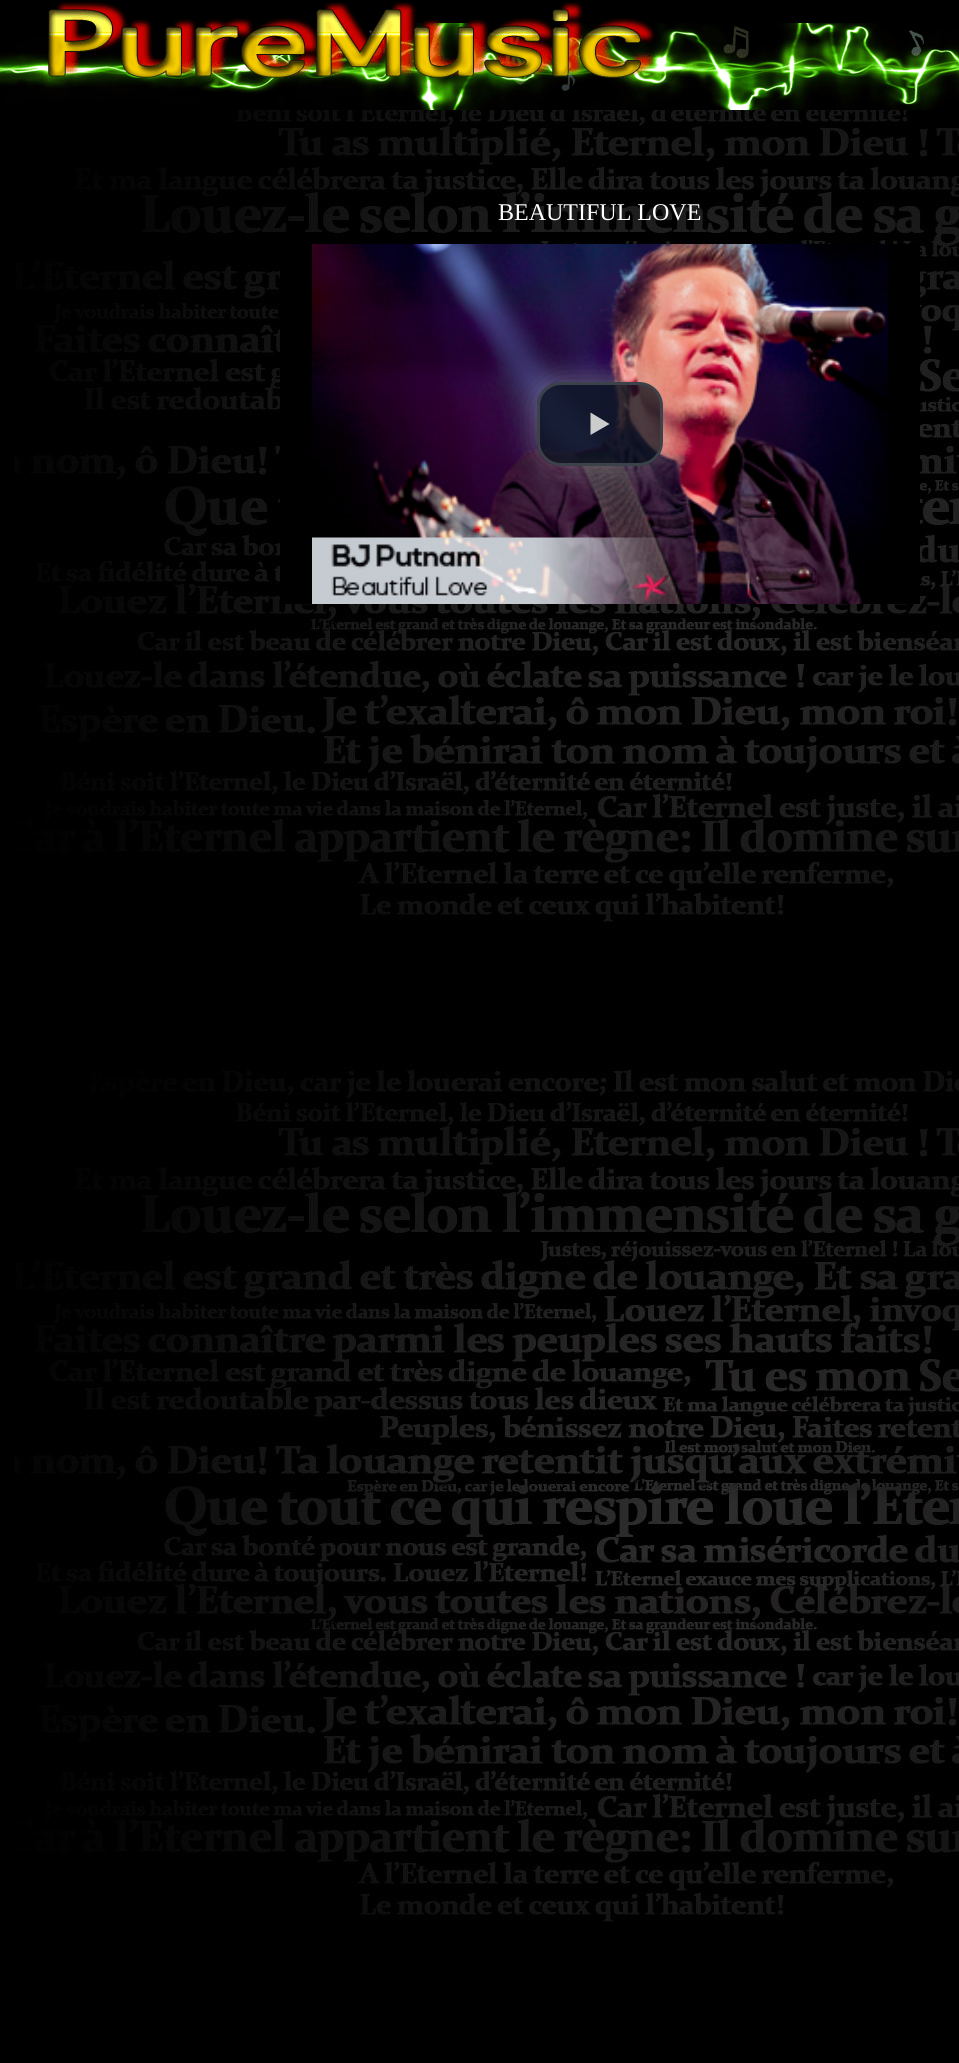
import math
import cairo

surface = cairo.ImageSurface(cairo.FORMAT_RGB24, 959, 2063)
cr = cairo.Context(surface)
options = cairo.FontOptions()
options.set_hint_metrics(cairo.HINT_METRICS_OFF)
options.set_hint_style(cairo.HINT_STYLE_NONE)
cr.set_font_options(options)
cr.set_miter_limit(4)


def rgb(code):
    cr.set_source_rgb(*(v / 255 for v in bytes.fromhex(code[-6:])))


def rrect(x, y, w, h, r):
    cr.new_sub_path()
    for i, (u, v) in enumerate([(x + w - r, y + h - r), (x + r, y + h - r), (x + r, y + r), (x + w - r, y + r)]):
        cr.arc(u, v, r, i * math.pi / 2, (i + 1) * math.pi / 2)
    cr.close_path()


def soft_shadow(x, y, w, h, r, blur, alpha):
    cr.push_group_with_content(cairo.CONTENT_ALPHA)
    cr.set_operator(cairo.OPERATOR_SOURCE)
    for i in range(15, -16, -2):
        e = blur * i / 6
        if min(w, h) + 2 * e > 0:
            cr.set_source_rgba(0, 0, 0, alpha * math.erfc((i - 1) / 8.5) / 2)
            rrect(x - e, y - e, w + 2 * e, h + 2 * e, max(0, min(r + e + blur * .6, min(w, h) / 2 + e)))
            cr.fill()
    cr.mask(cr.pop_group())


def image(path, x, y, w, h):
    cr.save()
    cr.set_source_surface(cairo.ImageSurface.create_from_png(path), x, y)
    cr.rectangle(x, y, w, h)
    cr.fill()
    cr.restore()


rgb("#000000")
cr.paint()
image("img/1.png", 14, 110, 945, 1812)
image("img/2.png", 0, 2, 959, 108)
rgb("#000000")
cr.rectangle(280, 244, 640, 360)
cr.fill()
image("img/3.png", 312, 244, 576, 360)
cr.save()
cr.set_fill_rule(cairo.FILL_RULE_EVEN_ODD)
cr.new_path()
cr.move_to(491, 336)
cr.line_to(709, 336)
cr.line_to(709, 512)
cr.line_to(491, 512)
cr.close_path()
cr.move_to(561, 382)
cr.line_to(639, 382)
cr.curve_to(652.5, 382, 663, 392.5, 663, 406)
cr.line_to(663, 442)
cr.curve_to(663, 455.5, 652.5, 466, 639, 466)
cr.line_to(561, 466)
cr.curve_to(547.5, 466, 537, 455.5, 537, 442)
cr.line_to(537, 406)
cr.curve_to(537, 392.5, 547.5, 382, 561, 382)
cr.close_path()
cr.clip()
rgb("#ffffff")
soft_shadow(537, 382, 126, 84, 24, 15, 0.25)
cr.restore()
cr.set_source_rgba(0.027, 0.078, 0.118, 0.7)
rrect(538.5, 383.5, 123, 81, 22.5)
cr.fill_preserve()
rgb("#3b4249")
cr.set_line_width(3)
cr.stroke()
rgb("#cccccc")
cr.new_path()
cr.move_to(590.5, 412.5)
cr.line_to(609.5, 424)
cr.line_to(590.5, 435)
cr.close_path()
cr.fill()
cr.select_font_face("Liberation Serif")
cr.set_font_size(24)
rgb("#ffffff")
cr.move_to(498, 220)
cr.show_text("BEAUTIFUL LOVE")
surface.write_to_png("page.png")
